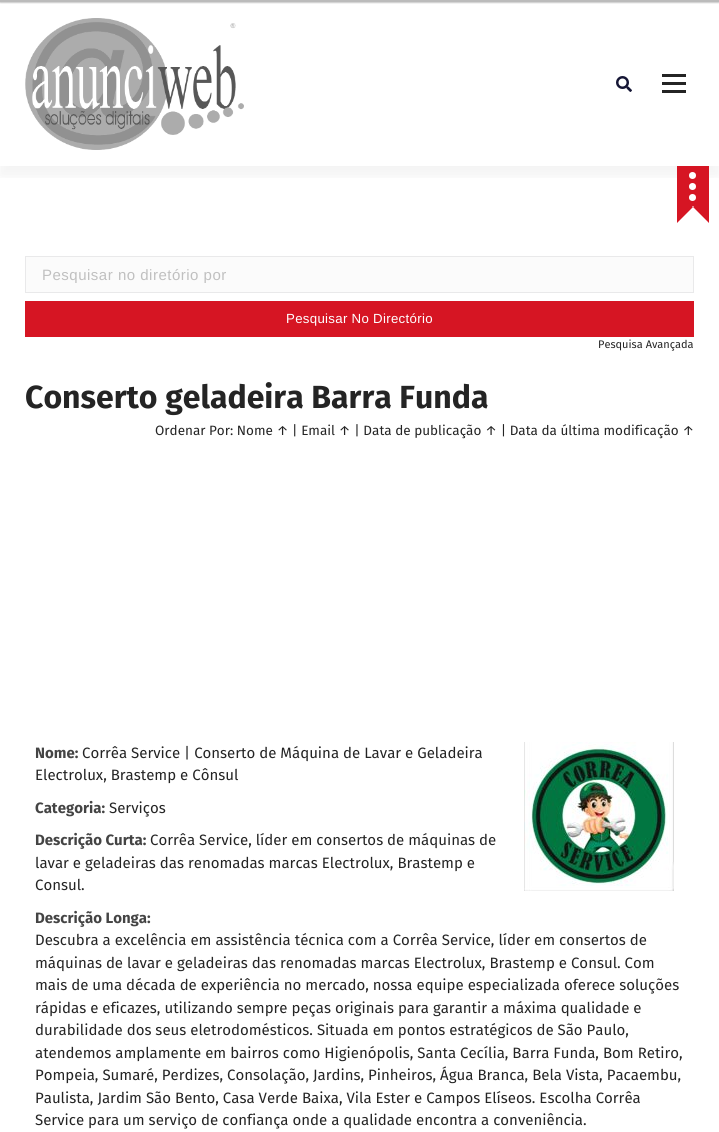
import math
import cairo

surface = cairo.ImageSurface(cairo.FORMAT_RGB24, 719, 1132)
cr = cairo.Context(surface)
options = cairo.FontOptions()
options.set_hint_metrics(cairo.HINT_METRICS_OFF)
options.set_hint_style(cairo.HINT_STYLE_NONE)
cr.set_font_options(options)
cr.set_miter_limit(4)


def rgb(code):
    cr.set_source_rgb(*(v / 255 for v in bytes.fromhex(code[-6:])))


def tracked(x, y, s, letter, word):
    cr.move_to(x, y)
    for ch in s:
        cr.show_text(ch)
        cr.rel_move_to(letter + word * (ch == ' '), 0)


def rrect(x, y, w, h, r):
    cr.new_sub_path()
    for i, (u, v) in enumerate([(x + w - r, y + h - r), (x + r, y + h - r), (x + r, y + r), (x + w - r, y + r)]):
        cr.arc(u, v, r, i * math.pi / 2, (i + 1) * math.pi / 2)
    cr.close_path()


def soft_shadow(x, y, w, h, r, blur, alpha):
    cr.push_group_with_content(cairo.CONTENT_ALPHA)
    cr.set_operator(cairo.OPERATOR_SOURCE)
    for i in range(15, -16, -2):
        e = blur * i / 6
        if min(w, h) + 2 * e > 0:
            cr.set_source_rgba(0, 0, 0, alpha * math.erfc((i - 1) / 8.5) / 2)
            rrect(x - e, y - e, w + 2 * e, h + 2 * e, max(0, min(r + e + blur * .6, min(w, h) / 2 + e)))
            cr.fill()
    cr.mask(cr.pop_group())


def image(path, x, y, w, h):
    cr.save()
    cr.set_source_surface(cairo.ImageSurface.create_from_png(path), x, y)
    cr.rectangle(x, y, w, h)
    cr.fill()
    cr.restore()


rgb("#ffffff")
cr.paint()
rgb("#000000")
soft_shadow(0, 1, 719, 2, 0, 0.5, 0.2)
cr.save()
cr.rectangle(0, 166, 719, 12)
cr.clip()
soft_shadow(0, 12, 719, 164, 0, 7.5, 0.05)
cr.restore()
rgb("#bbbbbb")
cr.rectangle(0, 0, 719, 2)
cr.fill()
image("img/1.png", 25, 18, 219, 132)
image("img/2.png", 616, 76, 16, 16)
for x, y, w, h, color in [
    (662, 74, 24, 3, "#242424"),
    (662, 82, 24, 3, "#242424"),
    (662, 90, 24, 3, "#242424"),
    (677, 166, 32, 40, "#d61523"),
]:
    rgb(color)
    cr.rectangle(x, y, w, h)
    cr.fill()
rgb("#ffffff")
cr.arc(692.5, 186.5, 3.5, 0, 2 * math.pi)
cr.fill()
cr.arc(692.5, 175.5, 3.5, 0, 2 * math.pi)
cr.fill()
rgb("#d61523")
cr.new_path()
cr.move_to(709, 191)
cr.line_to(709, 223)
cr.line_to(693, 207)
cr.close_path()
cr.move_to(677, 223)
cr.line_to(677, 191)
cr.line_to(693, 207)
cr.close_path()
cr.fill()
rgb("#ffffff")
cr.arc(692.5, 197.5, 3.5, 0, 2 * math.pi)
cr.fill()
rgb("#fbfbfb")
cr.rectangle(25.5, 256.5, 668, 36)
cr.fill_preserve()
rgb("#e9e9ea")
cr.set_line_width(1)
cr.stroke()
rgb("#d61523")
cr.rectangle(25, 301, 669, 36)
cr.fill()
image("img/3.png", 524, 742, 150, 149)
cr.save()
cr.rectangle(42, 266, 635, 17)
cr.clip()
cr.select_font_face("Liberation Sans")
cr.set_font_size(15)
rgb("#c0c0c0")
tracked(42, 280, "Pesquisar no diretório por", 0.5, 0)
cr.restore()
cr.select_font_face("Liberation Sans")
cr.set_font_size(13.25)
rgb("#ffffff")
tracked(286, 323, "Pesquisar No Directório", 0.3, 0)
cr.select_font_face("Fira Sans")
cr.set_font_size(11)
rgb("#242424")
cr.move_to(598, 348)
cr.show_text("Pesquisa Avançada")
cr.select_font_face("Fira Sans", cairo.FONT_SLANT_NORMAL, cairo.FONT_WEIGHT_BOLD)
cr.set_font_size(32)
cr.move_to(25, 408)
cr.show_text("Conserto geladeira Barra Funda")
cr.select_font_face("Fira Sans")
cr.set_font_size(13.5)
cr.move_to(155, 435)
cr.show_text("Ordenar Por: Nome ↑ | Email ↑ | Data de publicação ↑ | Data da última modificação ↑")
cr.select_font_face("Fira Sans", cairo.FONT_SLANT_NORMAL, cairo.FONT_WEIGHT_BOLD)
cr.set_font_size(15)
rgb("#444444")
cr.move_to(35, 758)
cr.show_text("Nome:")
cr.select_font_face("Fira Sans")
rgb("#242424")
cr.move_to(82, 758)
cr.show_text("Corrêa Service | Conserto de Máquina de Lavar e Geladeira")
cr.move_to(35, 780)
cr.show_text("Electrolux, Brastemp e Cônsul")
cr.select_font_face("Fira Sans", cairo.FONT_SLANT_NORMAL, cairo.FONT_WEIGHT_BOLD)
rgb("#444444")
cr.move_to(35, 813)
cr.show_text("Categoria:")
cr.select_font_face("Fira Sans")
rgb("#242424")
cr.move_to(109, 813)
cr.show_text("Serviços")
cr.select_font_face("Fira Sans", cairo.FONT_SLANT_NORMAL, cairo.FONT_WEIGHT_BOLD)
rgb("#444444")
cr.move_to(35, 845)
cr.show_text("Descrição Curta:")
cr.select_font_face("Fira Sans")
rgb("#242424")
for x, y, s in [
    (150, 845, "Corrêa Service, líder em consertos de máquinas de"),
    (35, 868, "lavar e geladeiras das renomadas marcas Electrolux, Brastemp e"),
    (35, 890, "Consul."),
]:
    cr.move_to(x, y)
    cr.show_text(s)
cr.select_font_face("Fira Sans", cairo.FONT_SLANT_NORMAL, cairo.FONT_WEIGHT_BOLD)
rgb("#444444")
cr.move_to(35, 923)
cr.show_text("Descrição Longa:")
cr.select_font_face("Fira Sans")
rgb("#242424")
for x, y, s in [
    (35, 945, "Descubra a excelência em assistência técnica com a Corrêa Service, líder em consertos de"),
    (35, 968, "máquinas de lavar e geladeiras das renomadas marcas Electrolux, Brastemp e Consul. Com"),
    (35, 990, "mais de uma década de experiência no mercado, nossa equipe especializada oferece soluções"),
    (35, 1013, "rápidas e eficazes, utilizando sempre peças originais para garantir a máxima qualidade e"),
    (35, 1035, "durabilidade dos seus eletrodomésticos. Situada em pontos estratégicos de São Paulo,"),
    (35, 1058, "atendemos amplamente em bairros como Higienópolis, Santa Cecília, Barra Funda, Bom Retiro,"),
    (35, 1080, "Pompeia, Sumaré, Perdizes, Consolação, Jardins, Pinheiros, Água Branca, Bela Vista, Pacaembu,"),
    (35, 1103, "Paulista, Jardim São Bento, Casa Verde Baixa, Vila Ester e Campos Elíseos. Escolha Corrêa"),
    (35, 1125, "Service para um serviço de confiança onde a qualidade encontra a conveniência."),
]:
    cr.move_to(x, y)
    cr.show_text(s)
surface.write_to_png("page.png")
